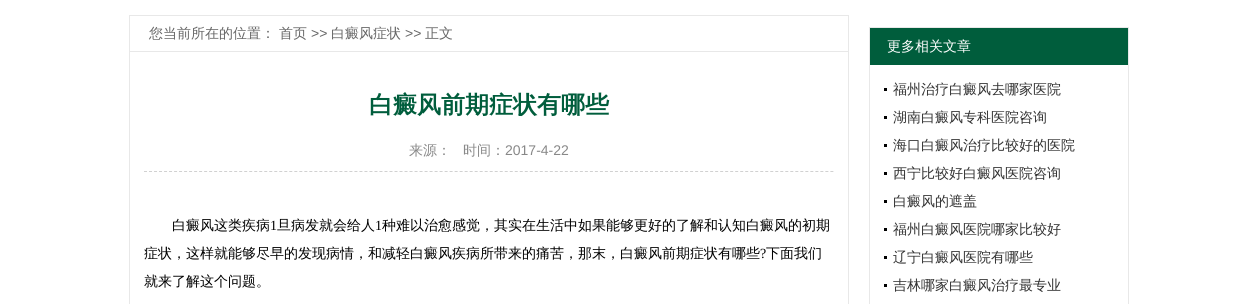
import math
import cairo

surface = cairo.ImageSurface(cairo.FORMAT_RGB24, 1258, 304)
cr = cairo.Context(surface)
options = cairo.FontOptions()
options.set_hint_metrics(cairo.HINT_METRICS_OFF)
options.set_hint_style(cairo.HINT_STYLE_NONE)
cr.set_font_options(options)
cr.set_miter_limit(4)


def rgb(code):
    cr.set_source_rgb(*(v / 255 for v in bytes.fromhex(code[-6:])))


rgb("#ffffff")
cr.paint()
cr.rectangle(129.5, 15.5, 719, 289)
rgb("#e8e8e8")
cr.set_line_width(1)
cr.stroke()
cr.rectangle(130, 51, 718, 1)
cr.fill()
cr.new_path()
cr.move_to(144, 171.5)
cr.line_to(834, 171.5)
rgb("#d1d1d1")
cr.set_dash([3, 2.01])
cr.stroke()
cr.rectangle(869.5, 27.5, 259, 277)
rgb("#e8e8e8")
cr.set_dash([])
cr.stroke()
for x, y, w, h, color in [
    (870, 28, 258, 37, "#005d3c"),
    (884, 88, 3, 3, "#000000"),
    (884, 116, 3, 3, "#000000"),
    (884, 144, 3, 3, "#000000"),
    (884, 172, 3, 3, "#000000"),
    (884, 200, 3, 3, "#000000"),
    (884, 228, 3, 3, "#000000"),
    (884, 256, 3, 3, "#000000"),
    (884, 284, 3, 3, "#000000"),
]:
    rgb(color)
    cr.rectangle(x, y, w, h)
    cr.fill()
cr.select_font_face("WenQuanYi Zen Hei Medium")
cr.set_font_size(14)
rgb("#666666")
cr.move_to(149, 38)
cr.show_text("您当前所在的位置：")
cr.move_to(279, 38)
cr.show_text("首页")
cr.select_font_face("Liberation Sans")
cr.move_to(311, 38)
cr.show_text(">>")
cr.select_font_face("WenQuanYi Zen Hei Medium")
cr.move_to(331, 38)
cr.show_text("白癜风症状")
cr.select_font_face("Liberation Sans")
cr.move_to(405, 38)
cr.show_text(">>")
cr.select_font_face("WenQuanYi Zen Hei Medium")
cr.move_to(425, 38)
cr.show_text("正文")
cr.select_font_face("WenQuanYi Zen Hei", cairo.FONT_SLANT_NORMAL, cairo.FONT_WEIGHT_BOLD)
cr.set_font_size(24)
rgb("#005d3c")
cr.move_to(369, 113)
cr.show_text("白癜风前期症状有哪些")
cr.select_font_face("WenQuanYi Zen Hei Medium")
cr.set_font_size(14)
rgb("#888888")
cr.move_to(409, 155)
cr.show_text("来源：")
cr.move_to(463, 155)
cr.show_text("时间：")
cr.select_font_face("Liberation Sans")
cr.move_to(505, 155)
cr.show_text("2017-4-22")
cr.select_font_face("WenQuanYi Zen Hei Medium")
rgb("#000000")
cr.move_to(172, 230)
cr.show_text("白癜风这类疾病")
cr.select_font_face("Liberation Serif")
cr.move_to(270, 230)
cr.show_text("1")
cr.select_font_face("WenQuanYi Zen Hei Medium")
cr.move_to(277, 230)
cr.show_text("旦病发就会给人")
cr.select_font_face("Liberation Serif")
cr.move_to(375, 230)
cr.show_text("1")
cr.select_font_face("WenQuanYi Zen Hei Medium")
cr.move_to(382, 230)
cr.show_text("种难以治愈感觉，其实在生活中如果能够更好的了解和认知白癜风的初期")
cr.move_to(144, 258)
cr.show_text("症状，这样就能够尽早的发现病情，和减轻白癜风疾病所带来的痛苦，那末，白癜风前期症状有哪些")
cr.select_font_face("Liberation Serif")
cr.move_to(760, 258)
cr.show_text("?")
cr.select_font_face("WenQuanYi Zen Hei Medium")
cr.move_to(766, 258)
cr.show_text("下面我们")
cr.move_to(144, 286)
cr.show_text("就来了解这个问题。")
rgb("#ffffff")
cr.move_to(887, 51)
cr.show_text("更多相关文章")
rgb("#333333")
for x, y, s in [
    (893, 94, "福州治疗白癜风去哪家医院"),
    (893, 122, "湖南白癜风专科医院咨询"),
    (893, 150, "海口白癜风治疗比较好的医院"),
    (893, 178, "西宁比较好白癜风医院咨询"),
    (893, 206, "白癜风的遮盖"),
    (893, 234, "福州白癜风医院哪家比较好"),
    (893, 262, "辽宁白癜风医院有哪些"),
    (893, 290, "吉林哪家白癜风治疗最专业"),
]:
    cr.move_to(x, y)
    cr.show_text(s)
surface.write_to_png("page.png")
